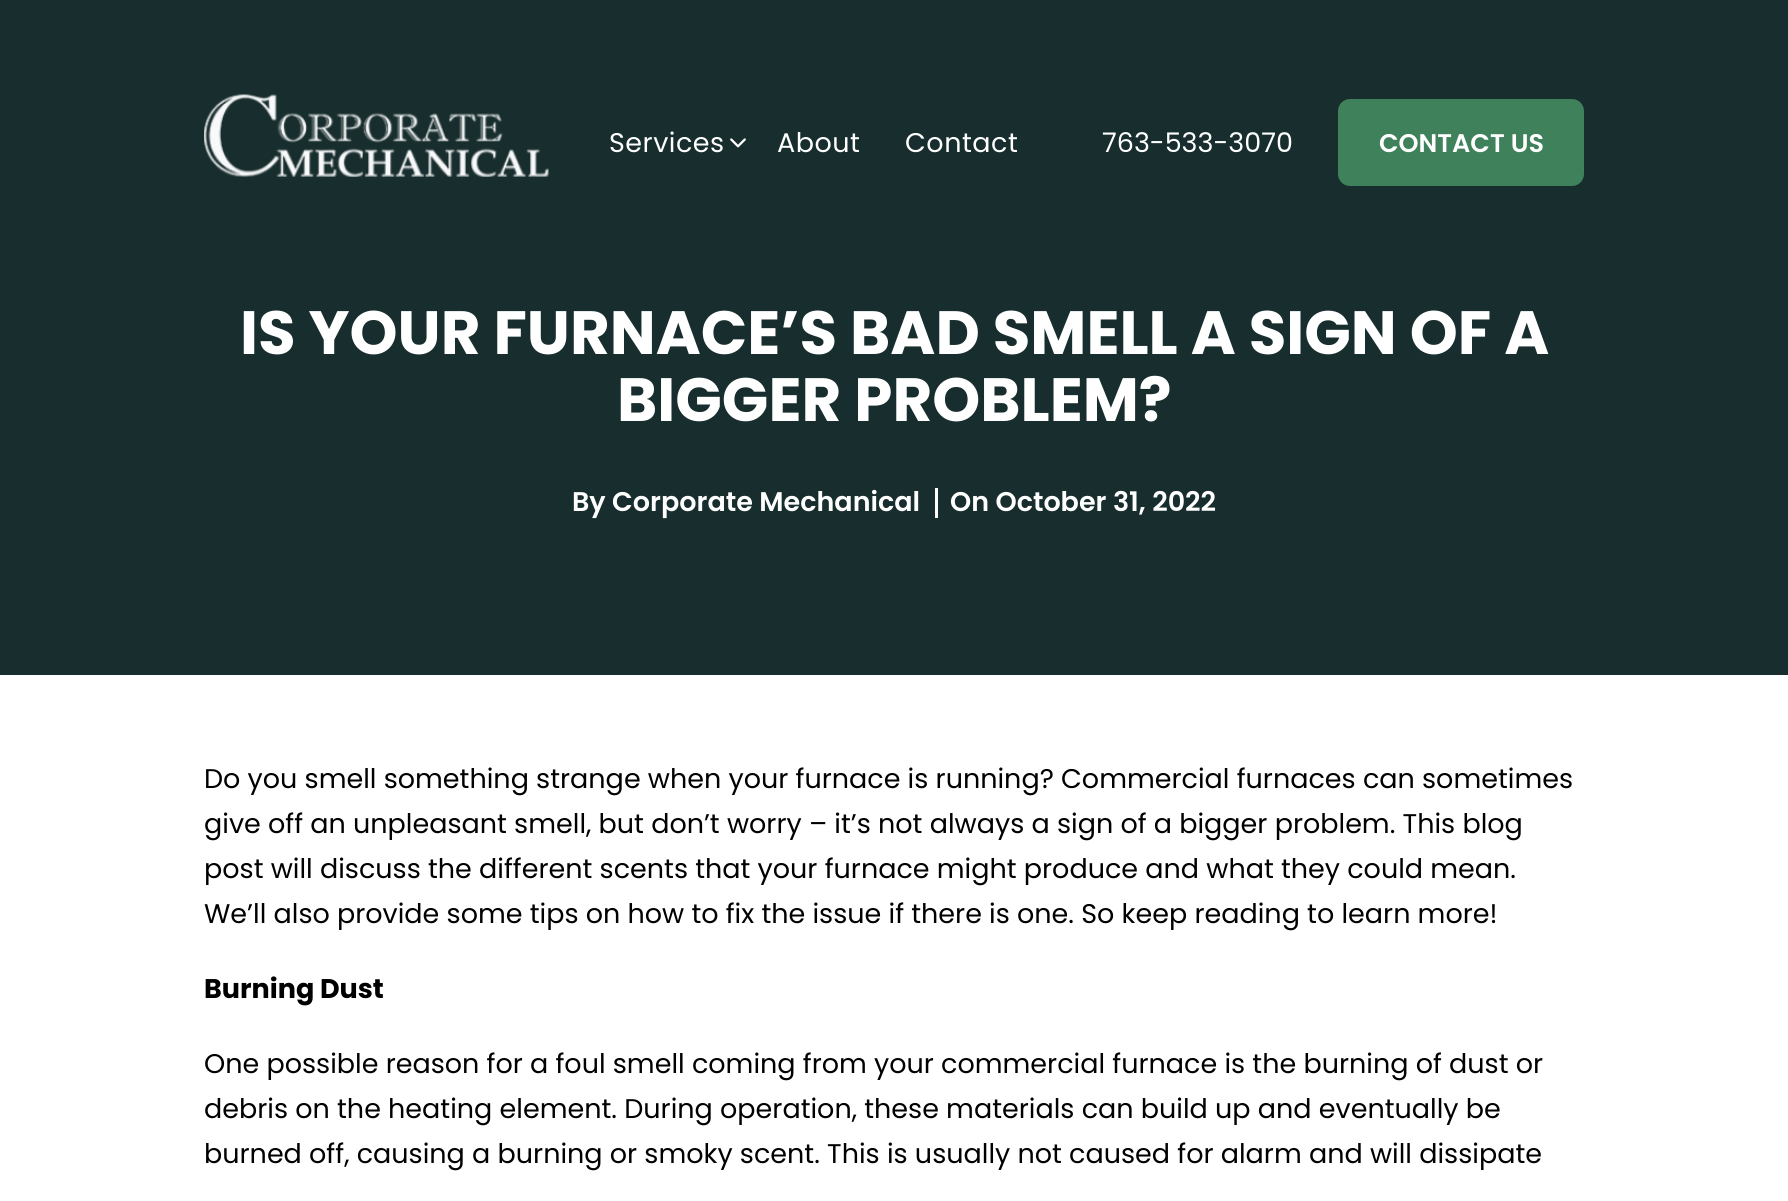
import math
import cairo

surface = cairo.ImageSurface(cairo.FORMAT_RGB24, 1788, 1201)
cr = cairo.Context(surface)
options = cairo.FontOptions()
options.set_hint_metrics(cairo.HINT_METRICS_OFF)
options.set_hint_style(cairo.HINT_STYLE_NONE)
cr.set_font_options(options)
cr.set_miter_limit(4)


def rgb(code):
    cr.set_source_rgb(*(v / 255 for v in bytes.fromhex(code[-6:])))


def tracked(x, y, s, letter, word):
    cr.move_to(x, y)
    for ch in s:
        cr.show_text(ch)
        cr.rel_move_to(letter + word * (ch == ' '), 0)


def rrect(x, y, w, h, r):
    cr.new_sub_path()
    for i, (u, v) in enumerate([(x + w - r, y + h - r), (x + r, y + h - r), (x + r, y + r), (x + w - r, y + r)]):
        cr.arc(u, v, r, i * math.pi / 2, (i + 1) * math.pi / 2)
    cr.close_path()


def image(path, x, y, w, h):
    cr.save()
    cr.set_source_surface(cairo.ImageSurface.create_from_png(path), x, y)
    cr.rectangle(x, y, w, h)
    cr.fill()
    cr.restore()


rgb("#ffffff")
cr.paint()
rgb("#182d2d")
cr.rectangle(0, 0, 1788, 675)
cr.fill()
image("img/1.png", 204, 94, 345, 83)
image("img/2.png", 730, 138, 16, 10)
rgb("#3e815b")
rrect(1339.5, 100.5, 243, 84, 10.5)
cr.fill_preserve()
cr.set_line_width(3)
cr.stroke()
rgb("#ffffff")
cr.rectangle(935, 488, 3, 30)
cr.fill()
cr.select_font_face("Poppins")
cr.set_font_size(27)
for x, y, s in [
    (609, 152, "Services"),
    (777, 152, "About"),
    (905, 152, "Contact"),
]:
    tracked(x, y, s, 0.5, 0)
cr.move_to(1102, 152)
cr.show_text("763-533-3070")
cr.select_font_face("Poppins SemiBold")
cr.set_font_size(25.5)
cr.move_to(1379, 152)
cr.show_text("CONTACT US")
cr.select_font_face("Poppins", cairo.FONT_SLANT_NORMAL, cairo.FONT_WEIGHT_BOLD)
cr.set_font_size(61.1)
cr.move_to(240, 354)
cr.show_text("IS YOUR FURNACE’S BAD SMELL A SIGN OF A")
cr.move_to(617, 421)
cr.show_text("BIGGER PROBLEM?")
cr.select_font_face("Poppins SemiBold")
cr.set_font_size(27)
cr.move_to(572, 511)
cr.show_text("By Corporate Mechanical")
cr.move_to(950, 511)
cr.show_text("On October 31, 2022")
cr.select_font_face("Poppins")
rgb("#000000")
for x, y, s in [
    (204, 788, "Do you smell something strange when your furnace is running? Commercial furnaces can sometimes"),
    (204, 833, "give off an unpleasant smell, but don’t worry – it’s not always a sign of a bigger problem. This blog"),
    (204, 878, "post will discuss the different scents that your furnace might produce and what they could mean."),
    (204, 923, "We’ll also provide some tips on how to fix the issue if there is one. So keep reading to learn more!"),
]:
    cr.move_to(x, y)
    cr.show_text(s)
cr.select_font_face("Poppins", cairo.FONT_SLANT_NORMAL, cairo.FONT_WEIGHT_BOLD)
cr.move_to(204, 998)
cr.show_text("Burning Dust")
cr.select_font_face("Poppins")
for x, y, s in [
    (204, 1073, "One possible reason for a foul smell coming from your commercial furnace is the burning of dust or"),
    (204, 1118, "debris on the heating element. During operation, these materials can build up and eventually be"),
    (204, 1163, "burned off, causing a burning or smoky scent. This is usually not caused for alarm and will dissipate"),
]:
    cr.move_to(x, y)
    cr.show_text(s)
surface.write_to_png("page.png")
